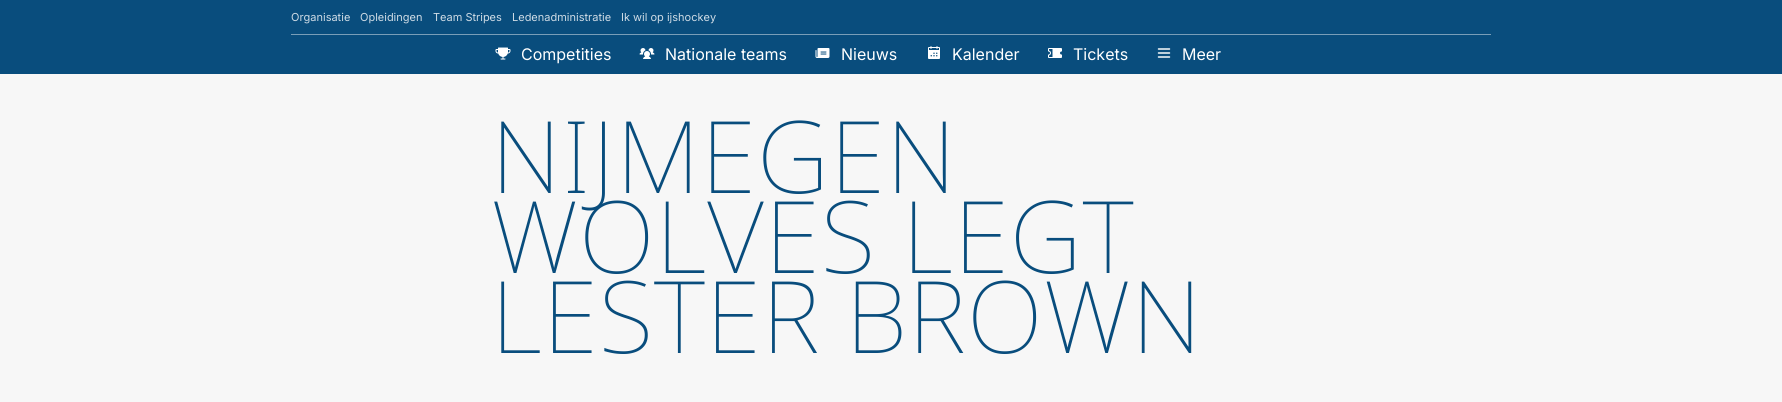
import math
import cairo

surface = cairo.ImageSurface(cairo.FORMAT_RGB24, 1782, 402)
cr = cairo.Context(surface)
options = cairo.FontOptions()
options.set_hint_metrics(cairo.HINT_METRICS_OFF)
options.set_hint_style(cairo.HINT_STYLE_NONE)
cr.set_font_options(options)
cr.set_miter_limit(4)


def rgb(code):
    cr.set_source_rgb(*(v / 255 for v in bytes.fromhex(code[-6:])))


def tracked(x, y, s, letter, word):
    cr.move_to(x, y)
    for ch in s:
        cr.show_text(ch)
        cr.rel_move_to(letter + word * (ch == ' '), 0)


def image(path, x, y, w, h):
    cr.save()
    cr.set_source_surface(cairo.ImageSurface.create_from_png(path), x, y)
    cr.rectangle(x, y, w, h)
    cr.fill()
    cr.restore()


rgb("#f7f7f7")
cr.paint()
rgb("#094d7d")
cr.rectangle(0, 0, 1782, 74)
cr.fill()
rgb("#799eb8")
cr.rectangle(291, 34, 1200, 1)
cr.fill()
image("img/1.png", 495, 47, 16, 13)
image("img/2.png", 639, 48, 16, 11)
image("img/3.png", 815, 48, 15, 10)
image("img/4.png", 928, 46, 12, 13)
image("img/5.png", 1048, 48, 14, 10)
image("img/6.png", 1157, 48, 14, 10)
cr.select_font_face("Inter")
cr.set_font_size(11)
rgb("#cedbe5")
for x, y, s in [
    (291, 21, "Organisatie"),
    (360, 21, "Opleidingen"),
    (433, 21, "Team Stripes"),
    (512, 21, "Ledenadministratie"),
    (621, 21, "Ik wil op ijshockey"),
]:
    cr.move_to(x, y)
    cr.show_text(s)
cr.set_font_size(16)
rgb("#ffffff")
for x, y, s in [
    (521, 60, "Competities"),
    (665, 60, "Nationale teams"),
    (841, 60, "Nieuws"),
    (952, 60, "Kalender"),
    (1073, 60, "Tickets"),
    (1182, 60, "Meer"),
]:
    cr.move_to(x, y)
    cr.show_text(s)
cr.select_font_face("Noto Sans Thin")
cr.set_font_size(100)
rgb("#094d7d")
tracked(491, 193, "NIJMEGEN", 1, 0)
tracked(491, 273, "WOLVES LEGT", 1, -1)
tracked(491, 353, "LESTER BROWN", 1, -2)
surface.write_to_png("page.png")
